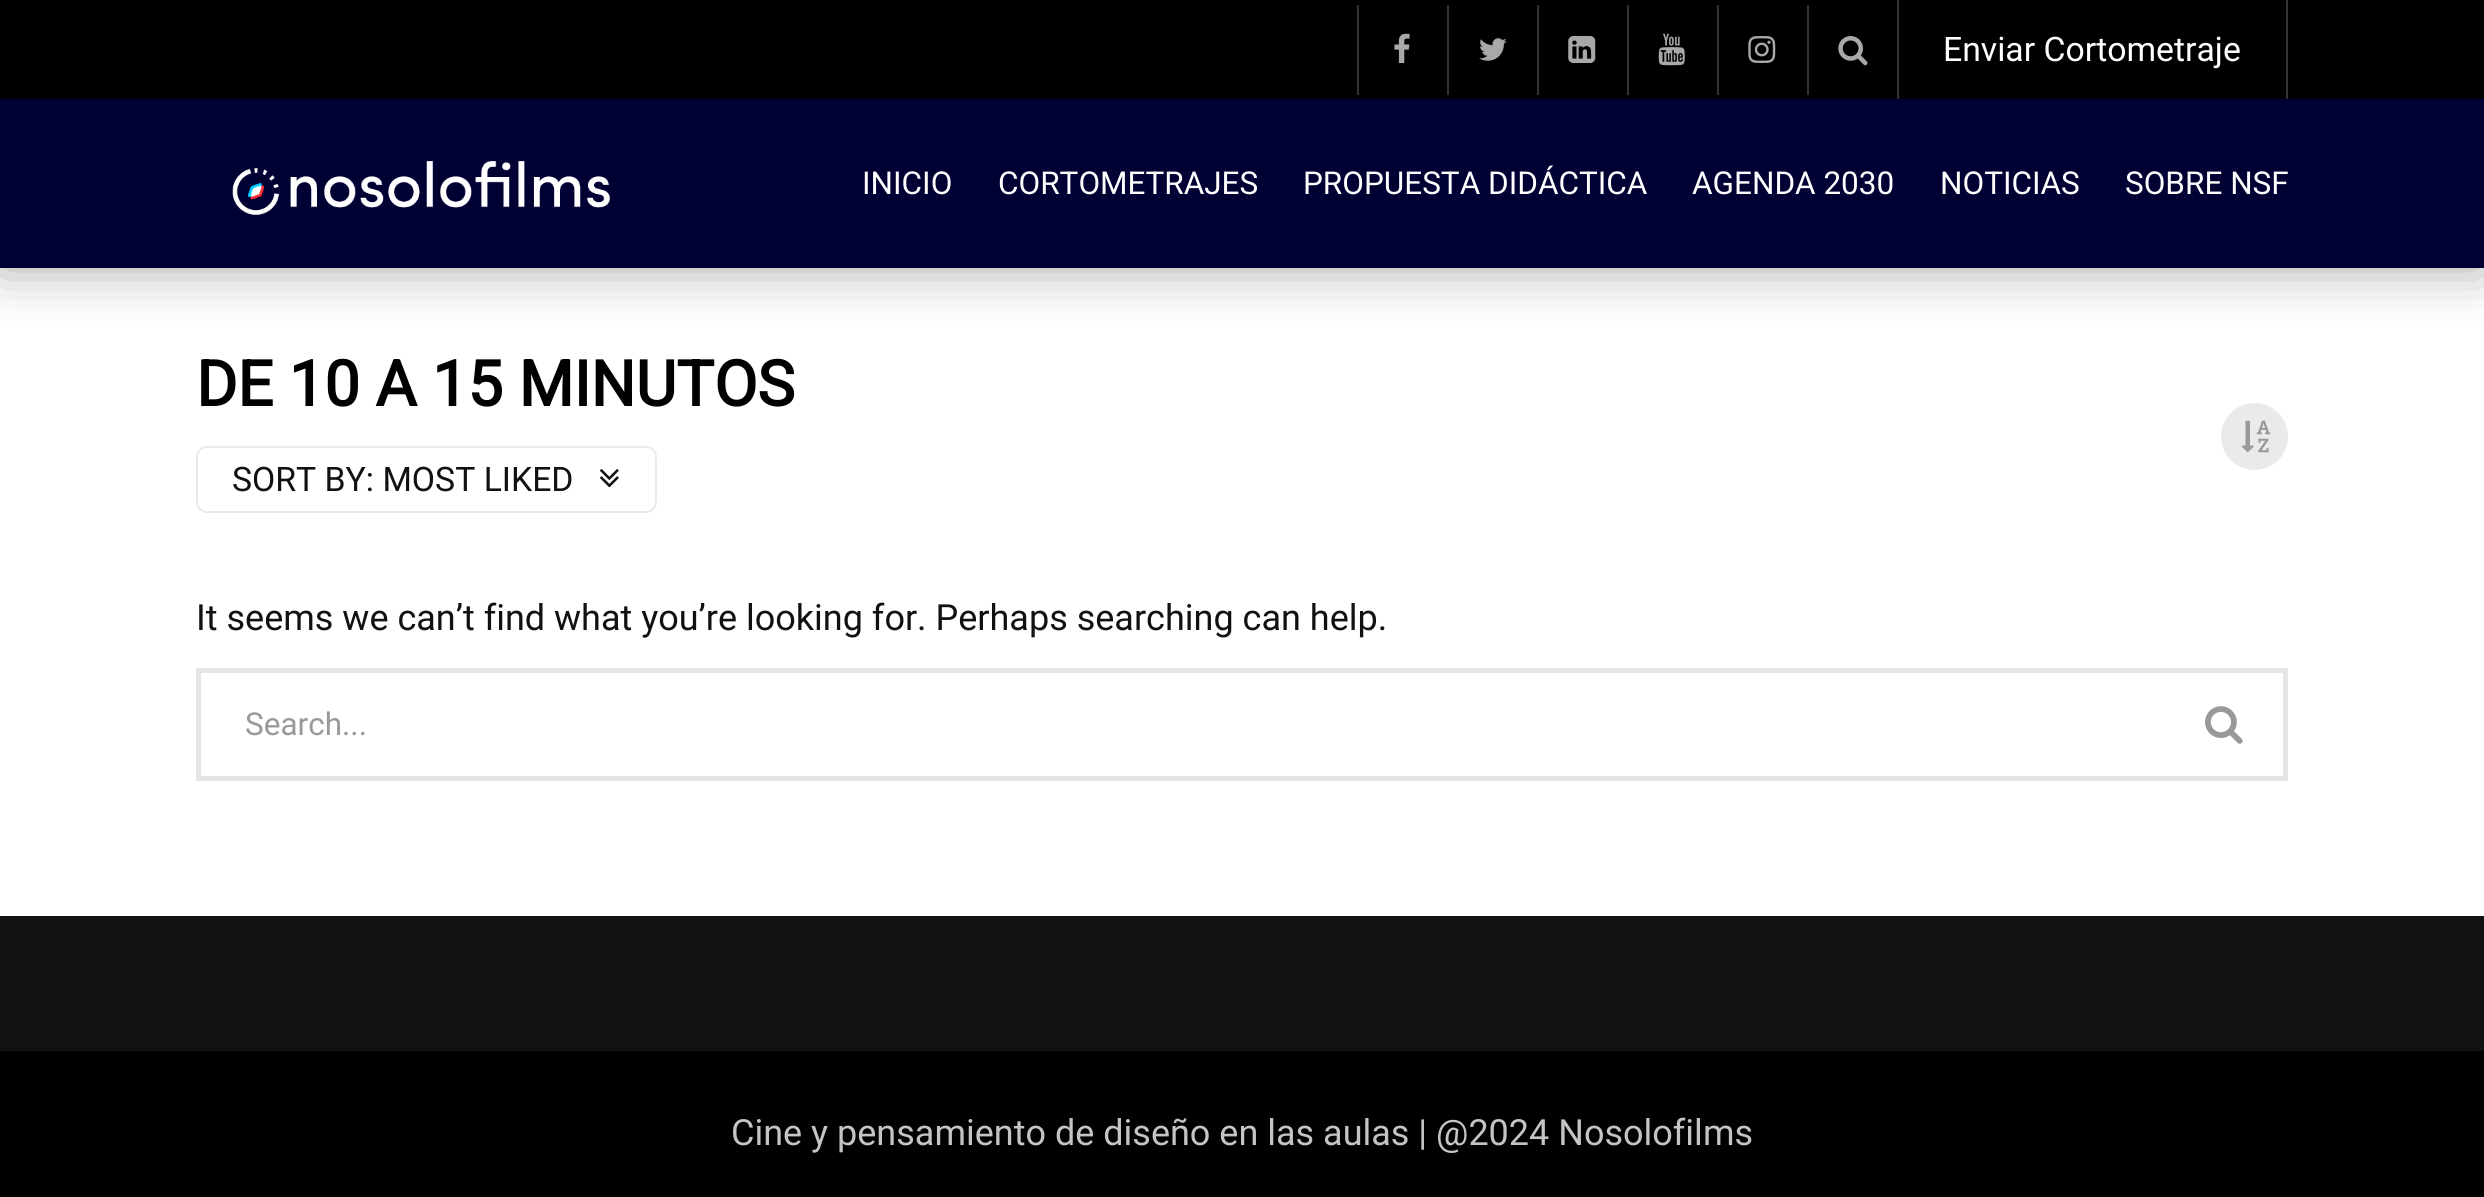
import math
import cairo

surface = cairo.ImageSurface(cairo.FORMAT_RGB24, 2484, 1197)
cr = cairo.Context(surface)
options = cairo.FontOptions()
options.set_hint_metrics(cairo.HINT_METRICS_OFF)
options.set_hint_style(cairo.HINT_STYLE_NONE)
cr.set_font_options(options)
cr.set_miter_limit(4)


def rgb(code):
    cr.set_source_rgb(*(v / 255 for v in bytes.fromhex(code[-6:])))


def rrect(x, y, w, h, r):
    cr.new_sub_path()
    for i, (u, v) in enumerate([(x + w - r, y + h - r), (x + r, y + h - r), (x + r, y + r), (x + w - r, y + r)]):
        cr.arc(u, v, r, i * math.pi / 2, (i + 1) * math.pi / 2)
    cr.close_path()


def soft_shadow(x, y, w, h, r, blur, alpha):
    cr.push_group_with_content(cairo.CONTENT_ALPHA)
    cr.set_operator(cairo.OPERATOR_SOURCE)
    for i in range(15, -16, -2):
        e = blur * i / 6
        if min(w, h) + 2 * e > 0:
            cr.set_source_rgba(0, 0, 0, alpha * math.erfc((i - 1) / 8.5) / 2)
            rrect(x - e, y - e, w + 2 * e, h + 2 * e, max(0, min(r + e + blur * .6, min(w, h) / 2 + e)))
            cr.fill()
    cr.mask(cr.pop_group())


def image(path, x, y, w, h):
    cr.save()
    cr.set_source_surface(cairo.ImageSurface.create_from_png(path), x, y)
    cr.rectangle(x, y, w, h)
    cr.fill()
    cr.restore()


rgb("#ffffff")
cr.paint()
rgb("#000000")
cr.rectangle(0, 0, 2484, 99)
cr.fill()
rgb("#000000")
soft_shadow(0, 99, 2484, 169, 0, 28, 0.35)
rgb("#333333")
cr.rectangle(1357, 5, 2, 90)
cr.fill()
image("img/1.png", 1394, 33, 16, 30)
cr.rectangle(1447, 5, 2, 90)
cr.fill()
image("img/2.png", 1479, 38, 28, 23)
cr.rectangle(1537, 5, 2, 90)
cr.fill()
image("img/3.png", 1568, 36, 28, 27)
cr.rectangle(1627, 5, 2, 90)
cr.fill()
image("img/4.png", 1658, 33, 27, 33)
cr.rectangle(1717, 5, 2, 90)
cr.fill()
image("img/5.png", 1748, 36, 28, 27)
cr.rectangle(1807, 5, 2, 90)
cr.fill()
image("img/6.png", 1838, 36, 30, 30)
for x, y, w, h, color in [
    (2286, 0, 2, 99, "#333333"),
    (1897, 0, 2, 99, "#333333"),
    (0, 99, 2484, 169, "#000033"),
]:
    rgb(color)
    cr.rectangle(x, y, w, h)
    cr.fill()
image("img/7.png", 232, 161, 379, 54)
rrect(197, 447, 459, 65, 10)
rgb("#eaeaea")
cr.stroke()
image("img/8.png", 600, 469, 19, 19)
cr.arc(2254.5, 436.5, 33.5, 0, 2 * math.pi)
cr.fill()
image("img/9.png", 2241, 420, 30, 33)
cr.rectangle(198.5, 670.5, 2087, 108)
rgb("#e5e5e5")
cr.set_line_width(5)
cr.stroke()
image("img/10.png", 2205, 706, 38, 38)
rgb("#111111")
cr.rectangle(0, 916, 2484, 135)
cr.fill()
rgb("#000000")
cr.rectangle(0, 1051, 2484, 146)
cr.fill()
cr.select_font_face("Roboto")
cr.set_font_size(33.75)
rgb("#ffffff")
cr.move_to(1943, 61)
cr.show_text("Enviar Cortometraje")
cr.set_font_size(31.5)
for x, y, s in [
    (862, 194, "INICIO"),
    (998, 194, "CORTOMETRAJES"),
    (1303, 194, "PROPUESTA DIDÁCTICA"),
    (1692, 194, "AGENDA 2030"),
    (1940, 194, "NOTICIAS"),
    (2125, 194, "SOBRE NSF"),
]:
    cr.move_to(x, y)
    cr.show_text(s)
cr.select_font_face("Roboto", cairo.FONT_SLANT_NORMAL, cairo.FONT_WEIGHT_BOLD)
cr.set_font_size(63)
rgb("#000000")
cr.move_to(196, 406)
cr.show_text("DE 10 A 15 MINUTOS")
cr.select_font_face("Roboto")
cr.set_font_size(33.75)
rgb("#111111")
cr.move_to(232, 491)
cr.show_text("SORT BY: MOST LIKED")
cr.set_font_size(36)
cr.move_to(196, 630)
cr.show_text("It seems we can’t find what you’re looking for. Perhaps searching can help.")
cr.set_font_size(31.5)
rgb("#999999")
cr.move_to(245, 735)
cr.show_text("Search...")
cr.set_font_size(36)
rgb("#c4c4c4")
cr.move_to(731, 1145)
cr.show_text("Cine y pensamiento de diseño en las aulas | @2024 Nosolofilms")
surface.write_to_png("page.png")
